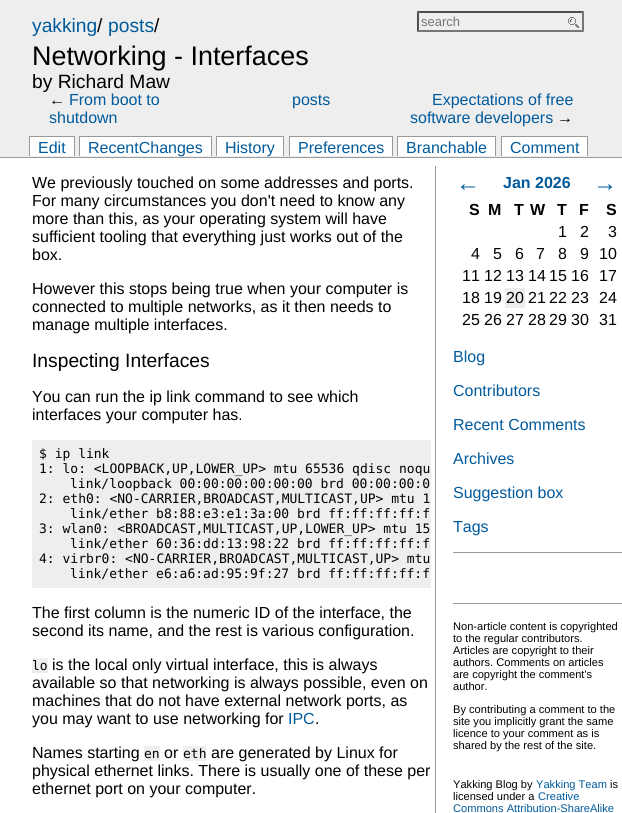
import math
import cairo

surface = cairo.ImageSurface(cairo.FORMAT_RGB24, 622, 813)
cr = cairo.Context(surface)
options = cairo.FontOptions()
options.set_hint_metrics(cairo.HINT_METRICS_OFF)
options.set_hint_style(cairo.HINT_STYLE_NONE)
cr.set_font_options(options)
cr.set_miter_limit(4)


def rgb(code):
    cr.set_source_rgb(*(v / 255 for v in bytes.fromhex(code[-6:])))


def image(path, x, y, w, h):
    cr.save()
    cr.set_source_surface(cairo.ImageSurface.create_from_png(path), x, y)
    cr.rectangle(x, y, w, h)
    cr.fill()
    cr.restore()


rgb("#ffffff")
cr.paint()
rgb("#eeeeee")
cr.rectangle(0, 0, 622, 157)
cr.fill()
rgb("#999999")
cr.rectangle(0, 157, 622, 1)
cr.fill()
image("img/1.png", 568, 17, 11, 11)
rgb("#4f4f4f")
cr.new_path()
cr.move_to(417, 11)
cr.line_to(584, 11)
cr.line_to(582, 13)
cr.line_to(419, 13)
cr.close_path()
cr.fill()
rgb("#767676")
cr.new_path()
cr.move_to(584, 11)
cr.line_to(584, 32)
cr.line_to(582, 30)
cr.line_to(582, 13)
cr.close_path()
cr.fill()
cr.new_path()
cr.move_to(584, 32)
cr.line_to(417, 32)
cr.line_to(419, 30)
cr.line_to(582, 30)
cr.close_path()
cr.fill()
rgb("#4f4f4f")
cr.new_path()
cr.move_to(417, 32)
cr.line_to(417, 11)
cr.line_to(419, 13)
cr.line_to(419, 30)
cr.close_path()
cr.fill()
for x, y, w, h, color in [
    (30, 137, 44, 19, "#ffffff"),
    (29, 136, 46, 1, "#999999"),
    (74, 136, 1, 20, "#999999"),
    (29, 136, 1, 20, "#999999"),
    (80, 137, 131, 19, "#ffffff"),
    (79, 136, 133, 1, "#999999"),
    (211, 136, 1, 20, "#999999"),
    (79, 136, 1, 20, "#999999"),
    (217, 137, 66, 19, "#ffffff"),
    (216, 136, 68, 1, "#999999"),
    (283, 136, 1, 20, "#999999"),
    (216, 136, 1, 20, "#999999"),
    (290, 137, 102, 19, "#ffffff"),
    (289, 136, 104, 1, "#999999"),
    (392, 136, 1, 20, "#999999"),
    (289, 136, 1, 20, "#999999"),
    (398, 137, 97, 19, "#ffffff"),
    (397, 136, 99, 1, "#999999"),
    (495, 136, 1, 20, "#999999"),
    (397, 136, 1, 20, "#999999"),
    (502, 137, 85, 19, "#ffffff"),
    (501, 136, 87, 1, "#999999"),
    (587, 136, 1, 20, "#999999"),
    (501, 136, 1, 20, "#999999"),
    (32, 440, 399, 148, "#eeeeee"),
    (32, 658, 16, 15, "#eeeeee"),
    (144, 746, 16, 15, "#eeeeee"),
    (183, 746, 23, 15, "#eeeeee"),
    (435, 166, 1, 647, "#999999"),
    (505, 288, 20, 20, "#eeeeee"),
    (453, 552, 169, 1, "#999999"),
    (453, 603, 169, 1, "#999999"),
]:
    rgb(color)
    cr.rectangle(x, y, w, h)
    cr.fill()
cr.select_font_face("Liberation Sans")
cr.set_font_size(19.25)
rgb("#005a9c")
cr.move_to(32, 32)
cr.show_text("yakking")
rgb("#000000")
cr.move_to(97, 32)
cr.show_text("/")
rgb("#005a9c")
cr.move_to(108, 32)
cr.show_text("posts")
rgb("#000000")
cr.move_to(154, 32)
cr.show_text("/")
cr.set_font_size(26.9)
cr.move_to(32, 65)
cr.show_text("Networking - Interfaces")
cr.set_font_size(19.25)
cr.move_to(32, 88)
cr.show_text("by Richard Maw")
cr.set_font_size(13)
rgb("#757575")
cr.move_to(421, 26)
cr.show_text("search")
cr.set_font_size(16)
rgb("#000000")
cr.move_to(49, 105)
cr.show_text("←")
rgb("#005a9c")
for x, y, s in [
    (69, 105, "From boot to"),
    (49, 123, "shutdown"),
    (292, 105, "posts"),
    (432, 105, "Expectations of free"),
    (410, 123, "software developers"),
]:
    cr.move_to(x, y)
    cr.show_text(s)
rgb("#000000")
cr.move_to(557, 123)
cr.show_text("→")
rgb("#005a9c")
for x, y, s in [
    (38, 153, "Edit"),
    (88, 153, "RecentChanges"),
    (225, 153, "History"),
    (298, 153, "Preferences"),
    (406, 153, "Branchable"),
    (510, 153, "Comment"),
]:
    cr.move_to(x, y)
    cr.show_text(s)
rgb("#000000")
for x, y, s in [
    (32, 188, "We previously touched on some addresses and ports."),
    (32, 206, "For many circumstances you don't need to know any"),
    (32, 224, "more than this, as your operating system will have"),
    (32, 242, "sufficient tooling that everything just works out of the"),
    (32, 260, "box."),
    (32, 294, "However this stops being true when your computer is"),
    (32, 312, "connected to multiple networks, as it then needs to"),
    (32, 330, "manage multiple interfaces."),
]:
    cr.move_to(x, y)
    cr.show_text(s)
cr.set_font_size(19.25)
cr.move_to(32, 367)
cr.show_text("Inspecting Interfaces")
cr.set_font_size(16)
cr.move_to(32, 402)
cr.show_text("You can run the ip link command to see which")
cr.move_to(32, 420)
cr.show_text("interfaces your computer has.")
cr.select_font_face("DejaVu Sans Mono")
cr.set_font_size(13)
for x, y, s in [
    (39, 458, "$ ip link"),
    (39, 473, "1: lo: <LOOPBACK,UP,LOWER_UP> mtu 65536 qdisc noqu"),
    (70, 488, "link/loopback 00:00:00:00:00:00 brd 00:00:00:0"),
    (39, 503, "2: eth0: <NO-CARRIER,BROADCAST,MULTICAST,UP> mtu 1"),
    (70, 518, "link/ether b8:88:e3:e1:3a:00 brd ff:ff:ff:ff:f"),
    (39, 533, "3: wlan0: <BROADCAST,MULTICAST,UP,LOWER_UP> mtu 15"),
    (70, 548, "link/ether 60:36:dd:13:98:22 brd ff:ff:ff:ff:f"),
    (39, 563, "4: virbr0: <NO-CARRIER,BROADCAST,MULTICAST,UP> mtu"),
    (70, 578, "link/ether e6:a6:ad:95:9f:27 brd ff:ff:ff:ff:f"),
]:
    cr.move_to(x, y)
    cr.show_text(s)
cr.select_font_face("Liberation Sans")
cr.set_font_size(16)
cr.move_to(32, 618)
cr.show_text("The first column is the numeric ID of the interface, the")
cr.move_to(32, 636)
cr.show_text("second its name, and the rest is various configuration.")
cr.select_font_face("DejaVu Sans Mono")
cr.set_font_size(13)
cr.move_to(32, 670)
cr.show_text("lo")
cr.select_font_face("Liberation Sans")
cr.set_font_size(16)
for x, y, s in [
    (52, 670, "is the local only virtual interface, this is always"),
    (32, 688, "available so that networking is always possible, even on"),
    (32, 706, "machines that do not have external network ports, as"),
    (32, 724, "you may want to use networking for"),
]:
    cr.move_to(x, y)
    cr.show_text(s)
rgb("#005a9c")
cr.move_to(288, 724)
cr.show_text("IPC")
rgb("#000000")
cr.move_to(315, 724)
cr.show_text(".")
cr.move_to(32, 758)
cr.show_text("Names starting")
cr.select_font_face("DejaVu Sans Mono")
cr.set_font_size(13)
cr.move_to(144, 758)
cr.show_text("en")
cr.select_font_face("Liberation Sans")
cr.set_font_size(16)
cr.move_to(164, 758)
cr.show_text("or")
cr.select_font_face("DejaVu Sans Mono")
cr.set_font_size(13)
cr.move_to(183, 758)
cr.show_text("eth")
cr.select_font_face("Liberation Sans")
cr.set_font_size(16)
for x, y, s in [
    (211, 758, "are generated by Linux for"),
    (32, 776, "physical ethernet links. There is usually one of these per"),
    (32, 794, "ethernet port on your computer."),
]:
    cr.move_to(x, y)
    cr.show_text(s)
cr.set_font_size(24)
rgb("#005a9c")
cr.move_to(456, 191)
cr.show_text("←")
cr.select_font_face("Liberation Sans", cairo.FONT_SLANT_NORMAL, cairo.FONT_WEIGHT_BOLD)
cr.set_font_size(16)
cr.move_to(503, 188)
cr.show_text("Jan 2026")
cr.select_font_face("Liberation Sans")
cr.set_font_size(24)
cr.move_to(593, 191)
cr.show_text("→")
cr.select_font_face("Liberation Sans", cairo.FONT_SLANT_NORMAL, cairo.FONT_WEIGHT_BOLD)
cr.set_font_size(16)
rgb("#000000")
for x, y, s in [
    (469, 215, "S"),
    (488, 215, "M"),
    (514, 215, "T"),
    (530, 215, "W"),
    (557, 215, "T"),
    (579, 215, "F"),
    (606, 215, "S"),
]:
    cr.move_to(x, y)
    cr.show_text(s)
cr.select_font_face("Liberation Sans")
for x, y, s in [
    (558, 237, "1"),
    (580, 237, "2"),
    (608, 237, "3"),
    (471, 259, "4"),
    (493, 259, "5"),
    (515, 259, "6"),
    (536, 259, "7"),
    (558, 259, "8"),
    (580, 259, "9"),
    (599, 259, "10"),
    (462, 281, "11"),
    (484, 281, "12"),
    (506, 281, "13"),
    (528, 281, "14"),
    (549, 281, "15"),
    (571, 281, "16"),
    (599, 281, "17"),
    (462, 303, "18"),
    (484, 303, "19"),
    (506, 303, "20"),
    (528, 303, "21"),
    (549, 303, "22"),
    (571, 303, "23"),
    (599, 303, "24"),
    (462, 325, "25"),
    (484, 325, "26"),
    (506, 325, "27"),
    (528, 325, "28"),
    (549, 325, "29"),
    (571, 325, "30"),
    (599, 325, "31"),
]:
    cr.move_to(x, y)
    cr.show_text(s)
rgb("#005a9c")
for x, y, s in [
    (453, 362, "Blog"),
    (453, 396, "Contributors"),
    (453, 430, "Recent Comments"),
    (453, 464, "Archives"),
    (453, 498, "Suggestion box"),
    (453, 532, "Tags"),
]:
    cr.move_to(x, y)
    cr.show_text(s)
cr.set_font_size(11.1)
rgb("#000000")
for x, y, s in [
    (453, 630, "Non-article content is copyrighted"),
    (453, 642, "to the regular contributors."),
    (453, 654, "Articles are copyright to their"),
    (453, 666, "authors. Comments on articles"),
    (453, 678, "are copyright the comment's"),
    (453, 690, "author."),
    (453, 713, "By contributing a comment to the"),
    (453, 725, "site you implicitly grant the same"),
    (453, 737, "licence to your comment as is"),
    (453, 749, "shared by the rest of the site."),
    (453, 788, "Yakking Blog by"),
]:
    cr.move_to(x, y)
    cr.show_text(s)
rgb("#005a9c")
cr.move_to(536, 788)
cr.show_text("Yakking Team")
rgb("#000000")
cr.move_to(610, 788)
cr.show_text("is")
cr.move_to(453, 800)
cr.show_text("licensed under a")
rgb("#005a9c")
cr.move_to(538, 800)
cr.show_text("Creative")
cr.move_to(453, 812)
cr.show_text("Commons Attribution-ShareAlike")
surface.write_to_png("page.png")
